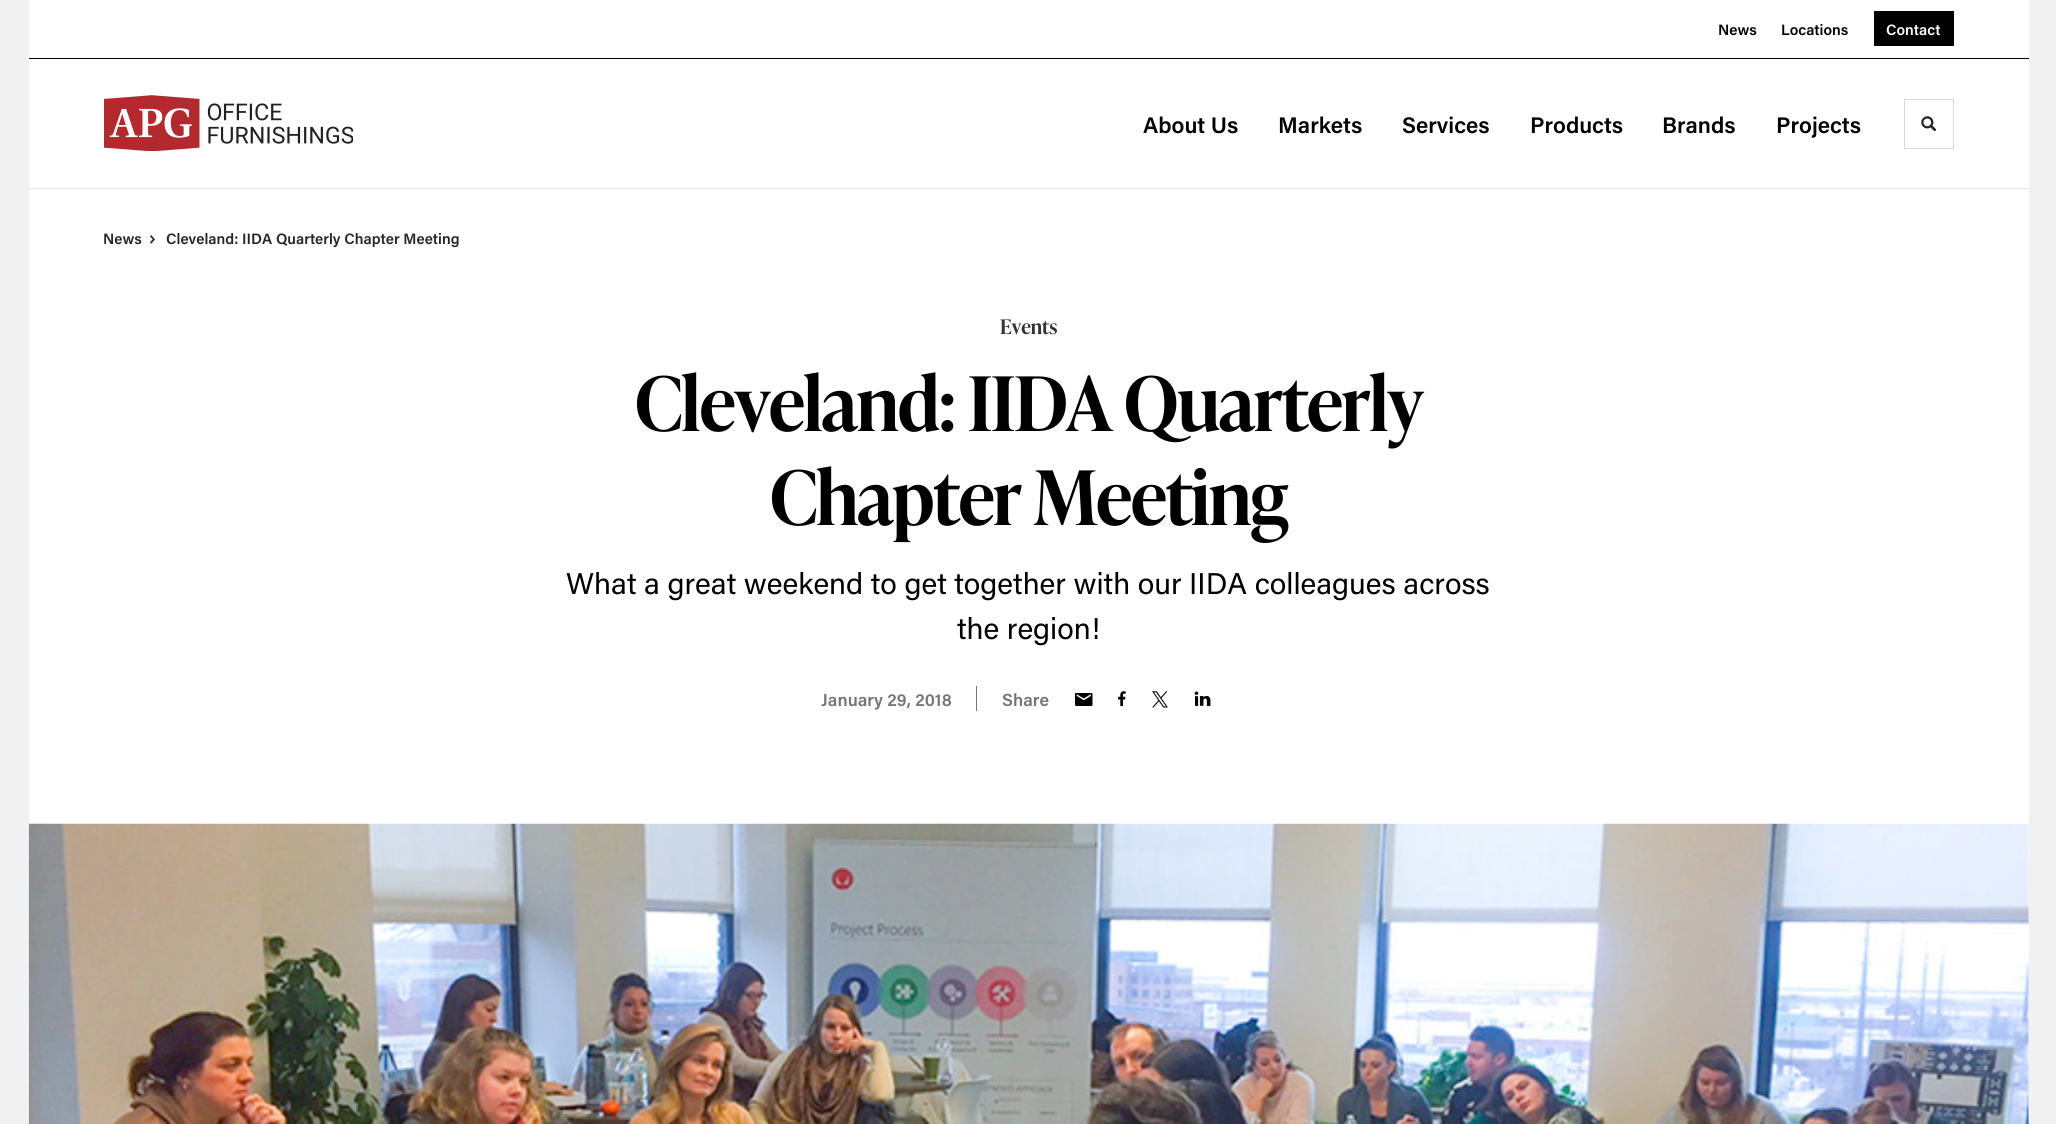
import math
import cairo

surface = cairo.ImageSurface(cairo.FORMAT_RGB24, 2056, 1124)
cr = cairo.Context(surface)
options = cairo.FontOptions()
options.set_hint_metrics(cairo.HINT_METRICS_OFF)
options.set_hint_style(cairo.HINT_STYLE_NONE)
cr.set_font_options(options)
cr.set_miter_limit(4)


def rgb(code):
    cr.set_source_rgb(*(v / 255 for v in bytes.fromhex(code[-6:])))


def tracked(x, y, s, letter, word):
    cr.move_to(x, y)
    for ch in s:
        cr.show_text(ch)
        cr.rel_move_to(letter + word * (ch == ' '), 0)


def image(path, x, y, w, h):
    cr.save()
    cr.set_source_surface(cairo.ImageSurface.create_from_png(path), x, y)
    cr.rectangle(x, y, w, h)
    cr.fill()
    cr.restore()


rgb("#f1f1f1")
cr.paint()
for x, y, w, h, color in [
    (29, 0, 2000, 1124, "#ffffff"),
    (29, 58, 2000, 1, "#000000"),
    (1874, 11, 80, 35, "#000000"),
    (29, 188, 2000, 1, "#e6e6e6"),
]:
    rgb(color)
    cr.rectangle(x, y, w, h)
    cr.fill()
image("img/1.png", 104, 95, 249, 56)
cr.rectangle(1904.5, 99.5, 49, 49)
rgb("#d7d7d7")
cr.set_line_width(1)
cr.stroke()
image("img/2.png", 1921, 116, 15, 15)
image("img/3.png", 150, 235, 5, 9)
rgb("#757575")
cr.rectangle(976, 686, 1, 25)
cr.fill()
image("img/4.png", 1075, 693, 18, 13)
image("img/5.png", 1118, 691, 8, 15)
image("img/6.png", 1152, 691, 16, 17)
image("img/7.png", 1194, 691, 17, 15)
image("img/8.png", 28, 823, 2001, 301)
cr.select_font_face("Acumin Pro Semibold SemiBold")
cr.set_font_size(15)
rgb("#000000")
cr.move_to(1718, 35)
cr.show_text("News")
cr.move_to(1781, 35)
cr.show_text("Locations")
rgb("#ffffff")
cr.move_to(1886, 35)
cr.show_text("Contact")
cr.set_font_size(22.5)
rgb("#000000")
for x, y, s in [
    (1143, 133, "About Us"),
    (1278, 133, "Markets"),
    (1402, 133, "Services"),
    (1530, 133, "Products"),
    (1662, 133, "Brands"),
    (1776, 133, "Projects"),
]:
    cr.move_to(x, y)
    cr.show_text(s)
cr.set_font_size(15)
rgb("#252525")
cr.move_to(103, 244)
cr.show_text("News")
cr.move_to(166, 244)
cr.show_text("Cleveland: IIDA Quarterly Chapter Meeting")
cr.select_font_face("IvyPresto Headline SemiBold")
cr.set_font_size(20)
rgb("#333333")
cr.move_to(1000, 334)
cr.show_text("Events")
cr.set_font_size(75)
rgb("#000000")
tracked(635, 431, "Cleveland: IIDA Quarterly", -1.25, 0)
tracked(770, 525, "Chapter Meeting", -1.25, 0)
cr.select_font_face("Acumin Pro")
cr.set_font_size(30)
cr.move_to(566, 594)
cr.show_text("What a great weekend to get together with our IIDA colleagues across")
cr.move_to(957, 639)
cr.show_text("the region!")
cr.select_font_face("Acumin Pro Semibold SemiBold")
cr.set_font_size(17.5)
rgb("#757575")
cr.move_to(821, 706)
cr.show_text("January 29, 2018")
cr.move_to(1002, 706)
cr.show_text("Share")
surface.write_to_png("page.png")
